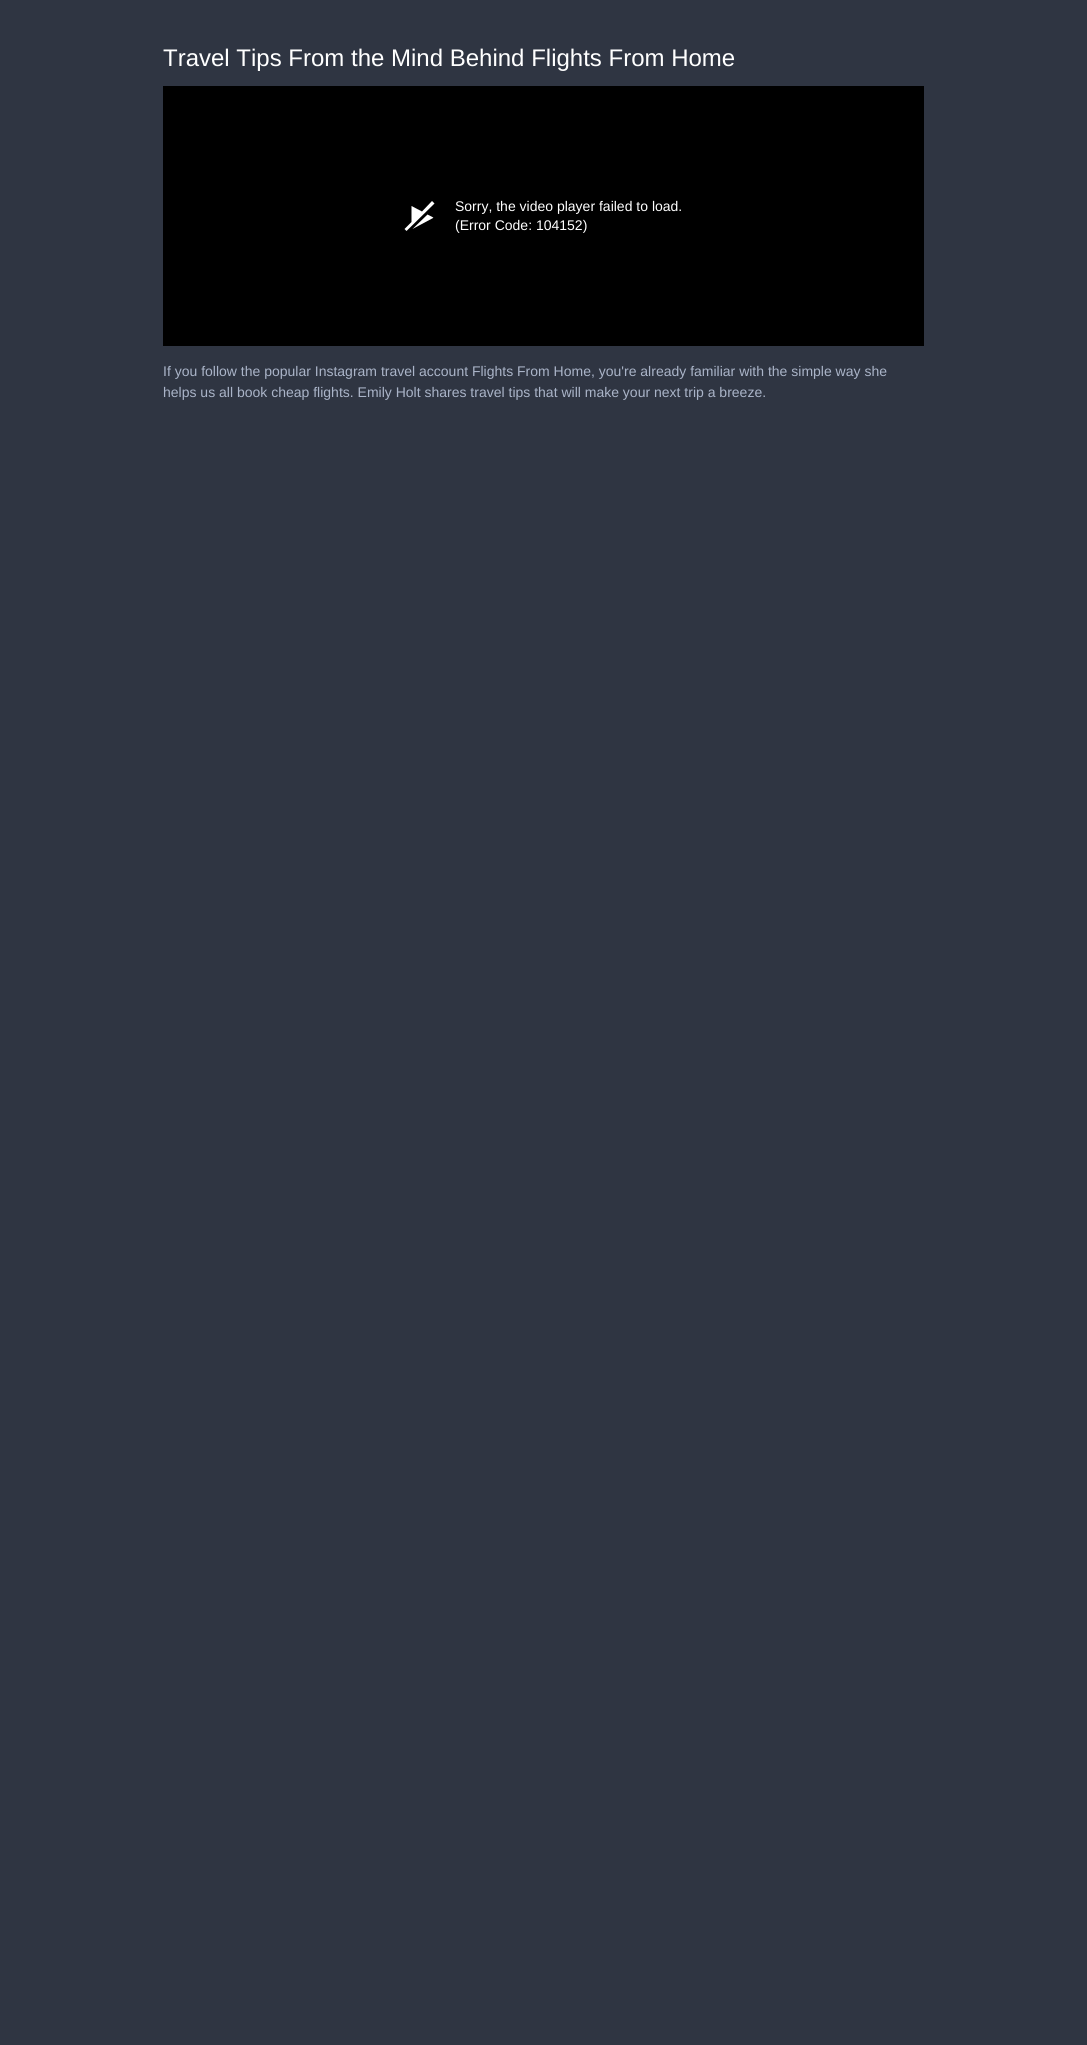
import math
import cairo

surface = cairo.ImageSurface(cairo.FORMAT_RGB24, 1087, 2045)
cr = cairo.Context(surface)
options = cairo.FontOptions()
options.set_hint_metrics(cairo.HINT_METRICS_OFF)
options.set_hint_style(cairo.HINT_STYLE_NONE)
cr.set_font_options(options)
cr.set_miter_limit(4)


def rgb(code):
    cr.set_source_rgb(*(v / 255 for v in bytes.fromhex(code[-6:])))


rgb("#2f3542")
cr.paint()
rgb("#000000")
cr.rectangle(163, 86, 761, 260)
cr.fill()
rgb("#ffffff")
cr.new_path()
cr.move_to(433, 218)
cr.line_to(412.5, 229)
cr.line_to(427.5, 214.5)
cr.curve_to(433, 217.5, 434, 217.5, 433, 218)
cr.close_path()
cr.move_to(432, 201)
cr.line_to(422, 211.5)
cr.line_to(411.5, 206)
cr.line_to(411.5, 222)
cr.line_to(404.5, 229)
cr.line_to(406.5, 231)
cr.line_to(434.5, 203.5)
cr.close_path()
cr.fill()
cr.select_font_face("Liberation Sans")
cr.set_font_size(24)
cr.move_to(163, 66)
cr.show_text("Travel Tips From the Mind Behind Flights From Home")
cr.set_font_size(14)
cr.move_to(455, 211)
cr.show_text("Sorry, the video player failed to load.")
cr.move_to(455, 230)
cr.show_text("(Error Code: 104152)")
rgb("#aab4c8")
cr.move_to(163, 376)
cr.show_text("If you follow the popular Instagram travel account Flights From Home, you're already familiar with the simple way she")
cr.move_to(163, 397)
cr.show_text("helps us all book cheap flights. Emily Holt shares travel tips that will make your next trip a breeze.")
surface.write_to_png("page.png")
